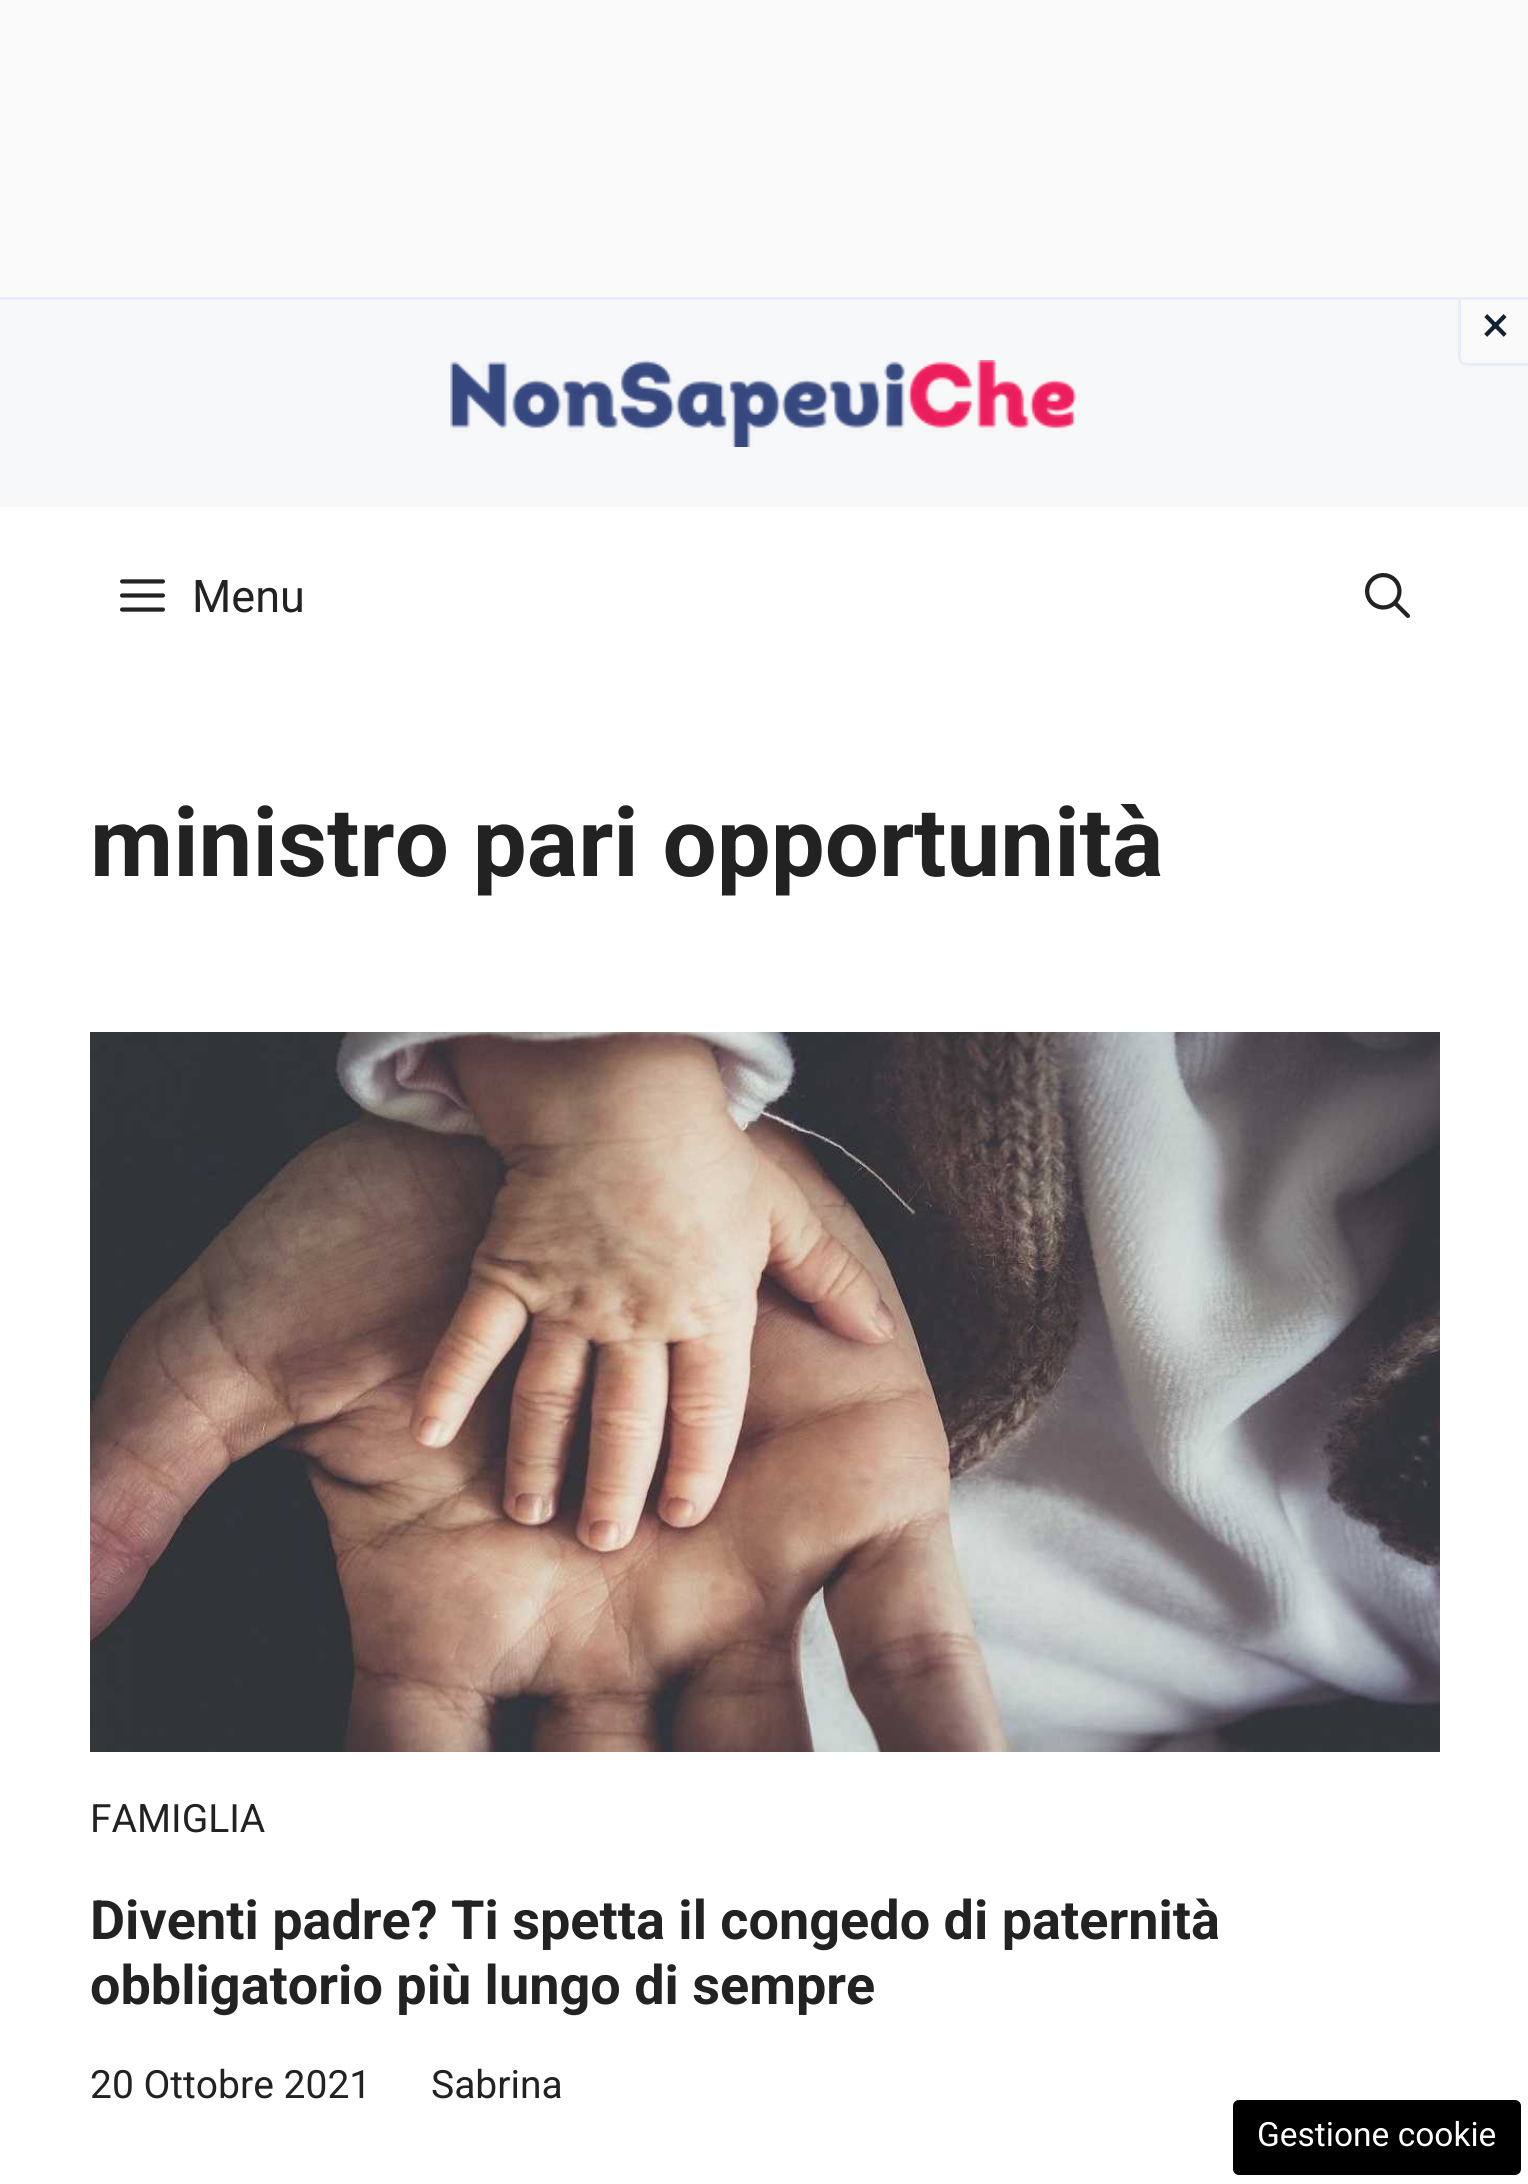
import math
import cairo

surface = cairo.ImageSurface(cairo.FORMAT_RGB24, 1528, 2184)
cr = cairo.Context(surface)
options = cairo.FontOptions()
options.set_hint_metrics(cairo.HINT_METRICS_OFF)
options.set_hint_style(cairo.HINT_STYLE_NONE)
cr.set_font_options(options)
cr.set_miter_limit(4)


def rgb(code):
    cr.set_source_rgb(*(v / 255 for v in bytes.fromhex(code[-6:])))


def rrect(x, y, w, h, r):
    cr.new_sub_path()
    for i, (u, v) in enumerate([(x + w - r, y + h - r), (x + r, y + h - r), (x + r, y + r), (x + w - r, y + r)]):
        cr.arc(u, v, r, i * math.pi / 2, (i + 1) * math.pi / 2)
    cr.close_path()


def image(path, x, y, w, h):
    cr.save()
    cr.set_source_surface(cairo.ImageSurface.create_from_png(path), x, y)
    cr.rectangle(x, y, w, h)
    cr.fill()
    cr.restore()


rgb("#ffffff")
cr.paint()
rgb("#f7f8f9")
cr.rectangle(0, 300, 1528, 207)
cr.fill()
image("img/1.png", 450, 360, 630, 87)
rgb("#fafafa")
cr.new_path()
cr.move_to(1458, 294)
cr.line_to(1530, 294)
cr.line_to(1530, 366)
cr.line_to(1467, 366)
cr.curve_to(1462, 366, 1458, 362, 1458, 357)
cr.close_path()
cr.fill()
rgb("#e8eef9")
cr.set_fill_rule(cairo.FILL_RULE_EVEN_ODD)
cr.new_path()
cr.move_to(1458, 294)
cr.line_to(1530, 294)
cr.line_to(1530, 366)
cr.line_to(1467, 366)
cr.curve_to(1462, 366, 1458, 362, 1458, 357)
cr.close_path()
cr.move_to(1461, 294)
cr.line_to(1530, 294)
cr.line_to(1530, 363)
cr.line_to(1467, 363)
cr.curve_to(1464, 363, 1461, 360, 1461, 357)
cr.close_path()
cr.fill()
rgb("#fafafa")
cr.rectangle(0, 0, 1528, 297)
cr.fill()
rgb("#e8eef9")
cr.rectangle(0, 297, 1528, 3)
cr.fill()
image("img/2.png", 120, 579, 45, 33)
image("img/3.png", 1365, 573, 45, 45)
image("img/4.png", 90, 1032, 1350, 720)
rgb("#000000")
rrect(1233, 2100, 288, 75, 6)
cr.fill()
cr.select_font_face("Roboto")
cr.set_font_size(51)
rgb("#112233")
cr.move_to(1482, 342)
cr.show_text("×")
cr.set_font_size(45)
rgb("#222222")
cr.move_to(192, 612)
cr.show_text("Menu")
cr.select_font_face("Roboto", cairo.FONT_SLANT_NORMAL, cairo.FONT_WEIGHT_BOLD)
cr.set_font_size(96)
cr.move_to(90, 876)
cr.show_text("ministro pari opportunità")
cr.select_font_face("Roboto")
cr.set_font_size(39)
cr.move_to(90, 1832)
cr.show_text("FAMIGLIA")
cr.select_font_face("Roboto", cairo.FONT_SLANT_NORMAL, cairo.FONT_WEIGHT_BOLD)
cr.set_font_size(54)
cr.move_to(90, 1939)
cr.show_text("Diventi padre? Ti spetta il congedo di paternità")
cr.move_to(90, 2004)
cr.show_text("obbligatorio più lungo di sempre")
cr.select_font_face("Roboto")
cr.set_font_size(39)
cr.move_to(90, 2098)
cr.show_text("20 Ottobre 2021")
cr.move_to(431, 2098)
cr.show_text("Sabrina")
cr.set_font_size(33.5)
rgb("#ffffff")
cr.move_to(1257, 2146)
cr.show_text("Gestione cookie")
surface.write_to_png("page.png")
